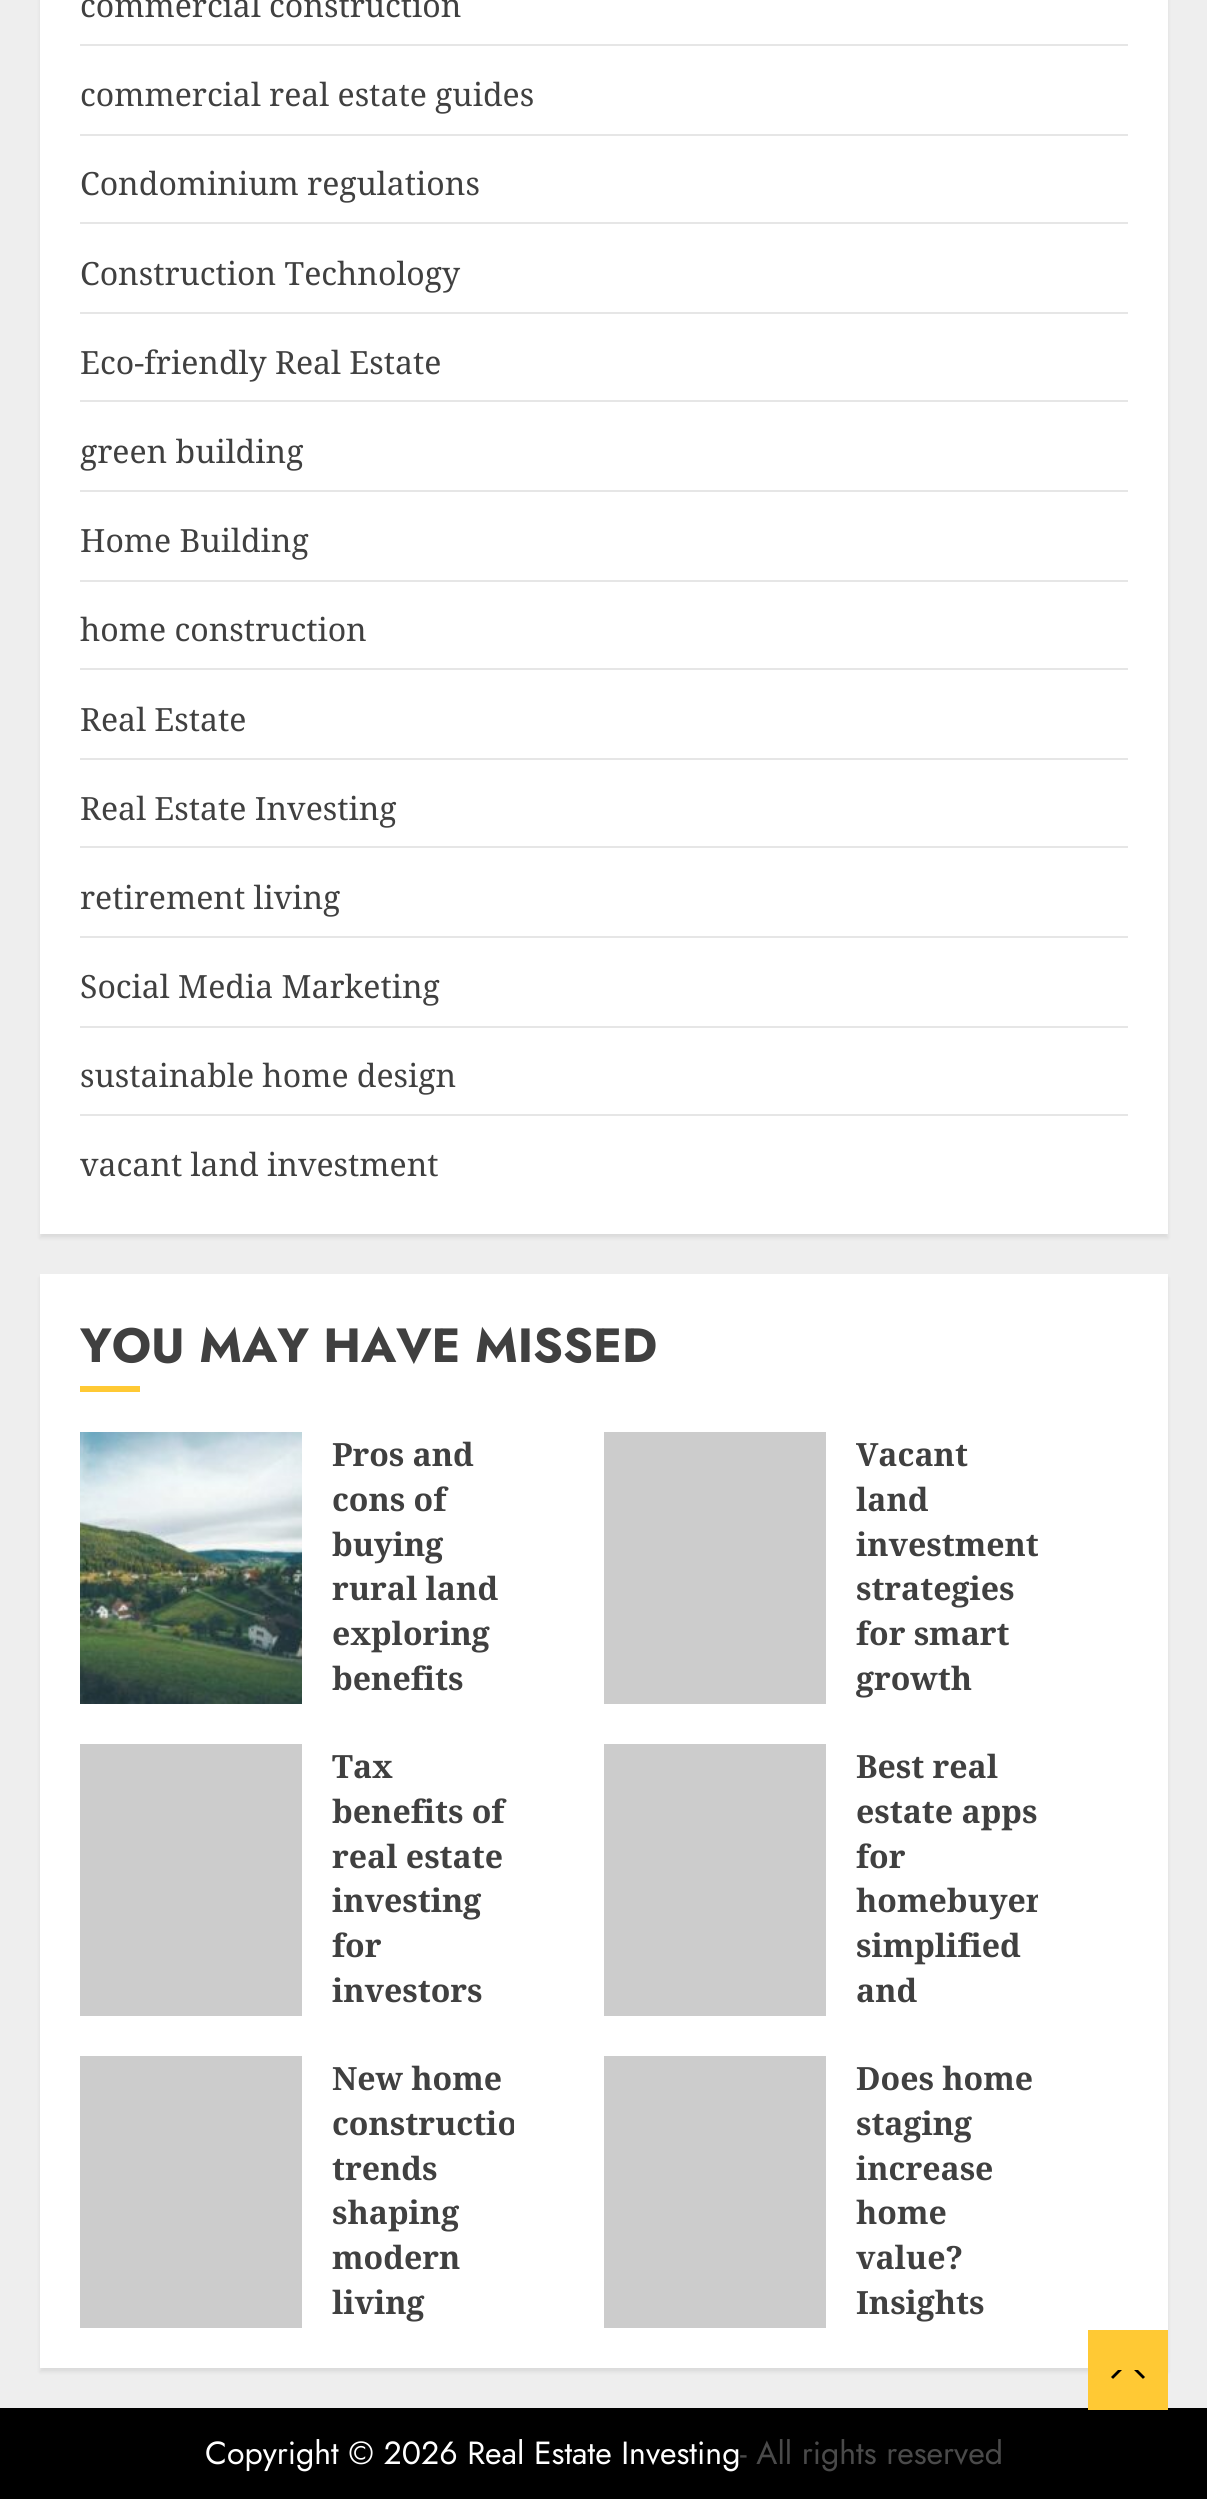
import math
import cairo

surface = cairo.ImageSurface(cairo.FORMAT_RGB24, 1207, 2499)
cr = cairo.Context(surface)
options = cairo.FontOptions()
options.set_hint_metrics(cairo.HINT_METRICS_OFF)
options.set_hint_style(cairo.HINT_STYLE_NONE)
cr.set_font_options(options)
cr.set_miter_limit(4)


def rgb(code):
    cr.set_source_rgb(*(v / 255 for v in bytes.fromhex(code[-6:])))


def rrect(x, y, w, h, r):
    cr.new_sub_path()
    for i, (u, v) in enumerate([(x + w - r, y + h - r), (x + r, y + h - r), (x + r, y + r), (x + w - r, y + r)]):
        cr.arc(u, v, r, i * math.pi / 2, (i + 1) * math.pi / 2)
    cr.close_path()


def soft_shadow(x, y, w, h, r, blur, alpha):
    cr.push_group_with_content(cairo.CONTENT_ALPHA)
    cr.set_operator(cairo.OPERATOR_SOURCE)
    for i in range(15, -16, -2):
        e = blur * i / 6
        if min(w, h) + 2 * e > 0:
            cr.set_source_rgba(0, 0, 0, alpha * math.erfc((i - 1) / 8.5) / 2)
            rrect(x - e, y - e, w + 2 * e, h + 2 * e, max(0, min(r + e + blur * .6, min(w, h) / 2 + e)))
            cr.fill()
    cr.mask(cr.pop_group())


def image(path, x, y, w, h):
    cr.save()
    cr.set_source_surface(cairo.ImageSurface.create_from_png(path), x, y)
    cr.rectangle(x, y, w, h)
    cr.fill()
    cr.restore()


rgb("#eeeeee")
cr.paint()
rgb("#000000")
soft_shadow(40, -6, 1128, 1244, 0, 2, 0.08)
for x, y, w, h, color in [
    (40, 0, 1128, 1234, "#ffffff"),
    (80, 44, 1048, 2, "#e6e6e6"),
    (80, 134, 1048, 2, "#e6e6e6"),
    (80, 222, 1048, 2, "#e6e6e6"),
    (80, 312, 1048, 2, "#e6e6e6"),
    (80, 400, 1048, 2, "#e6e6e6"),
    (80, 490, 1048, 2, "#e6e6e6"),
    (80, 580, 1048, 2, "#e6e6e6"),
    (80, 668, 1048, 2, "#e6e6e6"),
    (80, 758, 1048, 2, "#e6e6e6"),
    (80, 846, 1048, 2, "#e6e6e6"),
    (80, 936, 1048, 2, "#e6e6e6"),
    (80, 1026, 1048, 2, "#e6e6e6"),
    (80, 1114, 1048, 2, "#e6e6e6"),
]:
    rgb(color)
    cr.rectangle(x, y, w, h)
    cr.fill()
rgb("#000000")
soft_shadow(40, 1278, 1128, 1094, 0, 2, 0.08)
rgb("#ffffff")
cr.rectangle(40, 1274, 1128, 1094)
cr.fill()
rgb("#ffc934")
cr.rectangle(80, 1386, 60, 6)
cr.fill()
image("img/1.png", 80, 1432, 222, 272)
for x, y, w, h, color in [
    (604, 1432, 222, 272, "#cccccc"),
    (80, 1744, 222, 272, "#cccccc"),
    (604, 1744, 222, 272, "#cccccc"),
    (80, 2056, 222, 272, "#cccccc"),
    (604, 2056, 222, 272, "#cccccc"),
    (0, 2408, 1207, 91, "#000000"),
    (1088, 2330, 80, 80, "#ffc934"),
]:
    rgb(color)
    cr.rectangle(x, y, w, h)
    cr.fill()
rgb("#000000")
cr.new_path()
cr.move_to(1118, 2380)
cr.line_to(1138, 2380)
cr.curve_to(1141, 2380, 1143.5, 2379, 1145, 2377)
cr.line_to(1138, 2370)
cr.line_to(1118, 2370)
cr.line_to(1111, 2377)
cr.curve_to(1112.5, 2379, 1115, 2380, 1118, 2380)
cr.close_path()
cr.fill()
rgb("#ffc934")
cr.new_path()
cr.move_to(1148, 2384)
cr.line_to(1108, 2384)
cr.line_to(1128, 2364)
cr.close_path()
cr.fill()
cr.select_font_face("Noto Serif")
cr.set_font_size(32)
rgb("#404040")
for x, y, s in [
    (80, 17, "commercial construction"),
    (80, 106, "commercial real estate guides"),
    (80, 195, "Condominium regulations"),
    (80, 285, "Construction Technology"),
    (80, 374, "Eco-friendly Real Estate"),
    (80, 463, "green building"),
    (80, 552, "Home Building"),
    (80, 641, "home construction"),
    (80, 731, "Real Estate"),
    (80, 820, "Real Estate Investing"),
    (80, 909, "retirement living"),
    (80, 998, "Social Media Marketing"),
    (80, 1087, "sustainable home design"),
    (80, 1176, "vacant land investment"),
]:
    cr.move_to(x, y)
    cr.show_text(s)
cr.select_font_face("Jost", cairo.FONT_SLANT_NORMAL, cairo.FONT_WEIGHT_BOLD)
cr.set_font_size(48)
cr.move_to(80, 1362)
cr.show_text("YOU MAY HAVE MISSED")
cr.select_font_face("Noto Serif", cairo.FONT_SLANT_NORMAL, cairo.FONT_WEIGHT_BOLD)
cr.set_font_size(32)
for x, y, s in [
    (332, 1466, "Pros and"),
    (332, 1511, "cons of"),
    (332, 1556, "buying"),
    (332, 1600, "rural land"),
    (332, 1645, "exploring"),
    (332, 1690, "benefits"),
    (856, 1466, "Vacant"),
    (856, 1511, "land"),
]:
    cr.move_to(x, y)
    cr.show_text(s)
cr.save()
cr.rectangle(826, 1432, 212, 272)
cr.clip()
cr.move_to(856, 1556)
cr.show_text("investment")
cr.restore()
for x, y, s in [
    (856, 1600, "strategies"),
    (856, 1645, "for smart"),
    (856, 1690, "growth"),
    (332, 1778, "Tax"),
    (332, 1823, "benefits of"),
    (332, 1868, "real estate"),
    (332, 1912, "investing"),
    (332, 1957, "for"),
    (332, 2002, "investors"),
    (856, 1778, "Best real"),
    (856, 1823, "estate apps"),
    (856, 1868, "for"),
]:
    cr.move_to(x, y)
    cr.show_text(s)
cr.save()
cr.rectangle(826, 1744, 212, 272)
cr.clip()
cr.move_to(856, 1912)
cr.show_text("homebuyer")
cr.restore()
for x, y, s in [
    (856, 1957, "simplified"),
    (856, 2002, "and"),
    (332, 2090, "New home"),
]:
    cr.move_to(x, y)
    cr.show_text(s)
cr.save()
cr.rectangle(302, 2056, 212, 272)
cr.clip()
cr.move_to(332, 2135)
cr.show_text("constructio")
cr.restore()
for x, y, s in [
    (332, 2180, "trends"),
    (332, 2224, "shaping"),
    (332, 2269, "modern"),
    (332, 2314, "living"),
    (856, 2090, "Does home"),
    (856, 2135, "staging"),
    (856, 2180, "increase"),
    (856, 2224, "home"),
    (856, 2269, "value?"),
    (856, 2314, "Insights"),
]:
    cr.move_to(x, y)
    cr.show_text(s)
cr.select_font_face("Jost")
rgb("#ffffff")
cr.move_to(205, 2464)
cr.show_text("Copyright © 2026 Real Estate Investing")
rgb("#4a4a4a")
cr.move_to(740, 2464)
cr.show_text("- All rights reserved")
surface.write_to_png("page.png")
